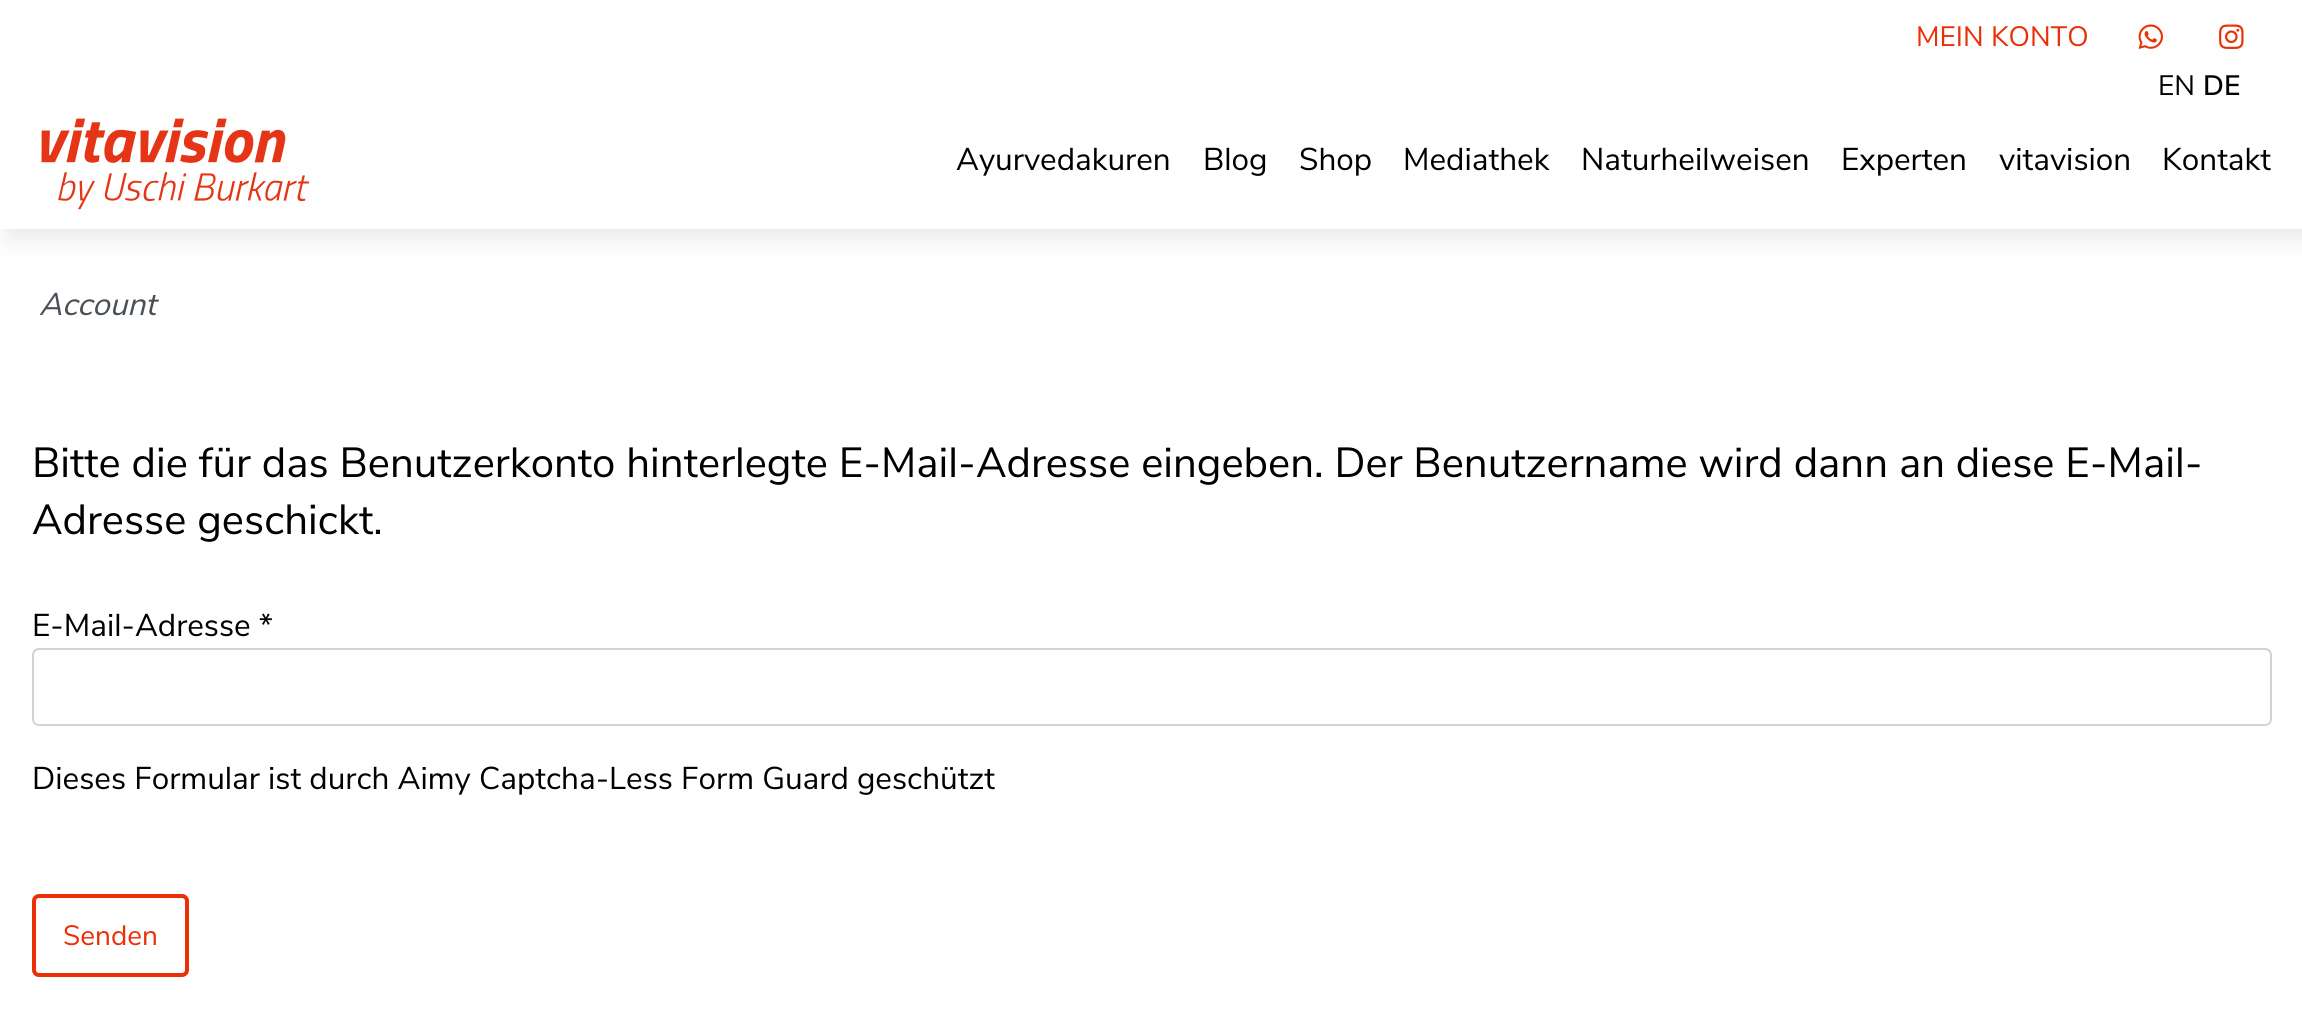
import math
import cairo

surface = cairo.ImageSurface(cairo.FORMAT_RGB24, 2302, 1033)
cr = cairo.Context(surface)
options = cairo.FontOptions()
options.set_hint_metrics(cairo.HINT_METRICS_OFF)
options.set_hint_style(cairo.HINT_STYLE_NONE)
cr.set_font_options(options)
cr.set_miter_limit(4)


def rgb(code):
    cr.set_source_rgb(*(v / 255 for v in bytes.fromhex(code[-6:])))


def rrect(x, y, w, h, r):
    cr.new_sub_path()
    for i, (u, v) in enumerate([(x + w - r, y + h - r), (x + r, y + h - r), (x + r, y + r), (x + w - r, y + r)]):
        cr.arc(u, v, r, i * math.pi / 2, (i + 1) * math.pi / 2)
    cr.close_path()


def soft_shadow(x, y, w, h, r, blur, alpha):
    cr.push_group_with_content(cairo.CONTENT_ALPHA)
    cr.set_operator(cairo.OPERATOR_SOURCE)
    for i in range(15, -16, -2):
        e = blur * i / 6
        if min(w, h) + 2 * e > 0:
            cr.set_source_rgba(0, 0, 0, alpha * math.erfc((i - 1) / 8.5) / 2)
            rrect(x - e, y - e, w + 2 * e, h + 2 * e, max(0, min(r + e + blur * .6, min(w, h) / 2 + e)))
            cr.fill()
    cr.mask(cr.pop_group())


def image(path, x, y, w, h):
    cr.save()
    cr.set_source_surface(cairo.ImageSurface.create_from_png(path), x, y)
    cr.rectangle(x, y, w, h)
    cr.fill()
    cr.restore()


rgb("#ffffff")
cr.paint()
cr.save()
cr.rectangle(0, 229, 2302, 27)
cr.clip()
rgb("#a2a2a2")
soft_shadow(9, 9, 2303, 229, 0, 13, 0.25)
cr.restore()
image("img/1.png", 2138, 24, 25, 25)
image("img/2.png", 2219, 24, 25, 25)
image("img/3.png", 41, 118, 269, 92)
rrect(33, 649, 2238, 76, 6)
rgb("#ced4da")
cr.stroke()
rrect(34, 896, 153, 79, 5)
rgb("#eb2f06")
cr.set_line_width(4)
cr.stroke()
cr.select_font_face("Nunito Sans")
cr.set_font_size(28)
cr.move_to(1916, 46)
cr.show_text("MEIN KONTO")
rgb("#000000")
cr.move_to(2158, 95)
cr.show_text("EN")
cr.select_font_face("Nunito Sans SemiBold")
cr.move_to(2203, 95)
cr.show_text("DE")
cr.select_font_face("Nunito Sans")
cr.set_font_size(31.5)
for x, y, s in [
    (956, 170, "Ayurvedakuren"),
    (1203, 170, "Blog"),
    (1299, 170, "Shop"),
    (1403, 170, "Mediathek"),
    (1581, 170, "Naturheilweisen"),
    (1841, 170, "Experten"),
    (1999, 170, "vitavision"),
    (2162, 170, "Kontakt"),
]:
    cr.move_to(x, y)
    cr.show_text(s)
cr.select_font_face("Nunito Sans", cairo.FONT_SLANT_ITALIC)
rgb("#484f56")
cr.move_to(39, 315)
cr.show_text("Account")
cr.select_font_face("Nunito Sans")
cr.set_font_size(42)
rgb("#000000")
cr.move_to(32, 477)
cr.show_text("Bitte die für das Benutzerkonto hinterlegte E-Mail-Adresse eingeben. Der Benutzername wird dann an diese E-Mail-")
cr.move_to(32, 534)
cr.show_text("Adresse geschickt.")
cr.set_font_size(31.5)
cr.move_to(32, 636)
cr.show_text("E-Mail-Adresse *")
cr.move_to(32, 789)
cr.show_text("Dieses Formular ist durch Aimy Captcha-Less Form Guard geschützt")
cr.set_font_size(28)
rgb("#eb2f06")
cr.move_to(63, 945)
cr.show_text("Senden")
surface.write_to_png("page.png")
